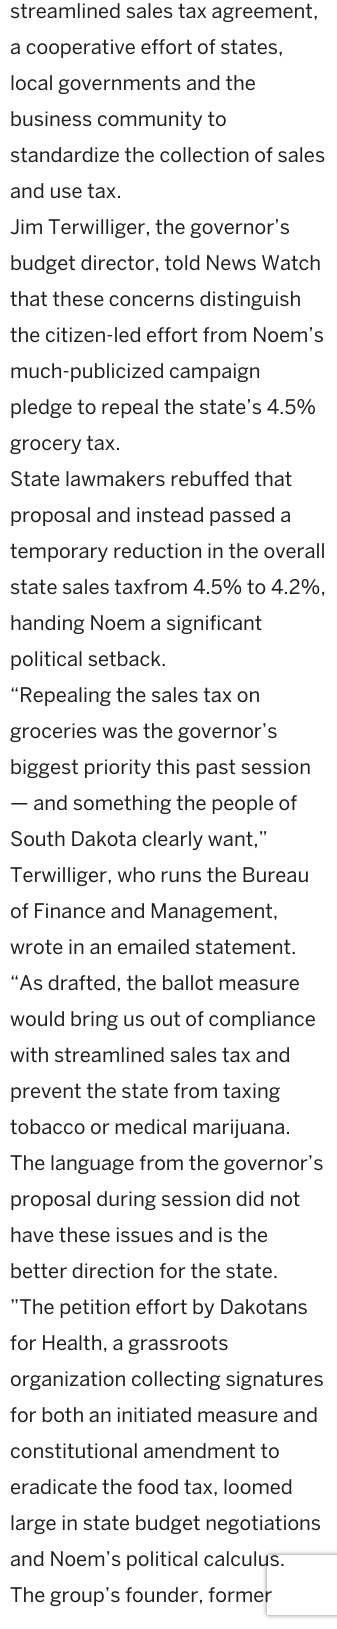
import math
import cairo

surface = cairo.ImageSurface(cairo.FORMAT_RGB24, 337, 1629)
cr = cairo.Context(surface)
options = cairo.FontOptions()
options.set_hint_metrics(cairo.HINT_METRICS_OFF)
options.set_hint_style(cairo.HINT_STYLE_NONE)
cr.set_font_options(options)
cr.set_miter_limit(4)


def rgb(code):
    cr.set_source_rgb(*(v / 255 for v in bytes.fromhex(code[-6:])))


def rrect(x, y, w, h, r):
    cr.new_sub_path()
    for i, (u, v) in enumerate([(x + w - r, y + h - r), (x + r, y + h - r), (x + r, y + r), (x + w - r, y + r)]):
        cr.arc(u, v, r, i * math.pi / 2, (i + 1) * math.pi / 2)
    cr.close_path()


def soft_shadow(x, y, w, h, r, blur, alpha):
    cr.push_group_with_content(cairo.CONTENT_ALPHA)
    cr.set_operator(cairo.OPERATOR_SOURCE)
    for i in range(15, -16, -2):
        e = blur * i / 6
        if min(w, h) + 2 * e > 0:
            cr.set_source_rgba(0, 0, 0, alpha * math.erfc((i - 1) / 8.5) / 2)
            rrect(x - e, y - e, w + 2 * e, h + 2 * e, max(0, min(r + e + blur * .6, min(w, h) / 2 + e)))
            cr.fill()
    cr.mask(cr.pop_group())


rgb("#ffffff")
cr.paint()
cr.save()
cr.set_fill_rule(cairo.FILL_RULE_EVEN_ODD)
cr.new_path()
cr.move_to(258, 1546)
cr.line_to(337, 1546)
cr.line_to(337, 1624)
cr.line_to(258, 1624)
cr.close_path()
cr.move_to(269, 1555)
cr.line_to(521, 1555)
cr.curve_to(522, 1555, 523, 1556, 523, 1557)
cr.line_to(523, 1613)
cr.curve_to(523, 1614, 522, 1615, 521, 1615)
cr.line_to(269, 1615)
cr.curve_to(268, 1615, 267, 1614, 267, 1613)
cr.line_to(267, 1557)
cr.curve_to(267, 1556, 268, 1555, 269, 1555)
cr.close_path()
cr.clip()
rgb("#808080")
soft_shadow(267, 1555, 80, 60, 2, 2.5, 1)
cr.restore()
cr.select_font_face("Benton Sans")
cr.set_font_size(20)
rgb("#202020")
for x, y, s in [
    (10, 18, "streamlined sales tax agreement,"),
    (10, 54, "a cooperative effort of states,"),
    (10, 90, "local governments and the"),
    (10, 126, "business community to"),
    (10, 162, "standardize the collection of sales"),
    (10, 198, "and use tax."),
    (10, 234, "Jim Terwilliger, the governor’s"),
    (10, 270, "budget director, told News Watch"),
    (10, 306, "that these concerns distinguish"),
    (10, 342, "the citizen-led effort from Noem’s"),
    (10, 378, "much-publicized campaign"),
    (10, 414, "pledge to repeal the state’s 4.5%"),
    (10, 450, "grocery tax."),
    (10, 486, "State lawmakers rebuffed that"),
    (10, 522, "proposal and instead passed a"),
    (10, 558, "temporary reduction in the overall"),
    (10, 594, "state sales taxfrom 4.5% to 4.2%,"),
    (10, 630, "handing Noem a significant"),
    (10, 666, "political setback."),
    (10, 702, "“Repealing the sales tax on"),
    (10, 738, "groceries was the governor’s"),
    (10, 774, "biggest priority this past session"),
    (10, 810, "— and something the people of"),
    (10, 846, "South Dakota clearly want,”"),
    (10, 882, "Terwilliger, who runs the Bureau"),
    (10, 918, "of Finance and Management,"),
    (10, 954, "wrote in an emailed statement."),
    (10, 990, "“As drafted, the ballot measure"),
    (10, 1026, "would bring us out of compliance"),
    (10, 1062, "with streamlined sales tax and"),
    (10, 1098, "prevent the state from taxing"),
    (10, 1134, "tobacco or medical marijuana."),
    (10, 1170, "The language from the governor’s"),
    (10, 1206, "proposal during session did not"),
    (10, 1242, "have these issues and is the"),
    (10, 1278, "better direction for the state."),
    (10, 1314, "”The petition effort by Dakotans"),
    (10, 1350, "for Health, a grassroots"),
    (10, 1386, "organization collecting signatures"),
    (10, 1422, "for both an initiated measure and"),
    (10, 1458, "constitutional amendment to"),
    (10, 1494, "eradicate the food tax, loomed"),
    (10, 1530, "large in state budget negotiations"),
    (10, 1566, "and Noem’s political calculus."),
    (10, 1602, "The group’s founder, former"),
]:
    cr.move_to(x, y)
    cr.show_text(s)
surface.write_to_png("page.png")
